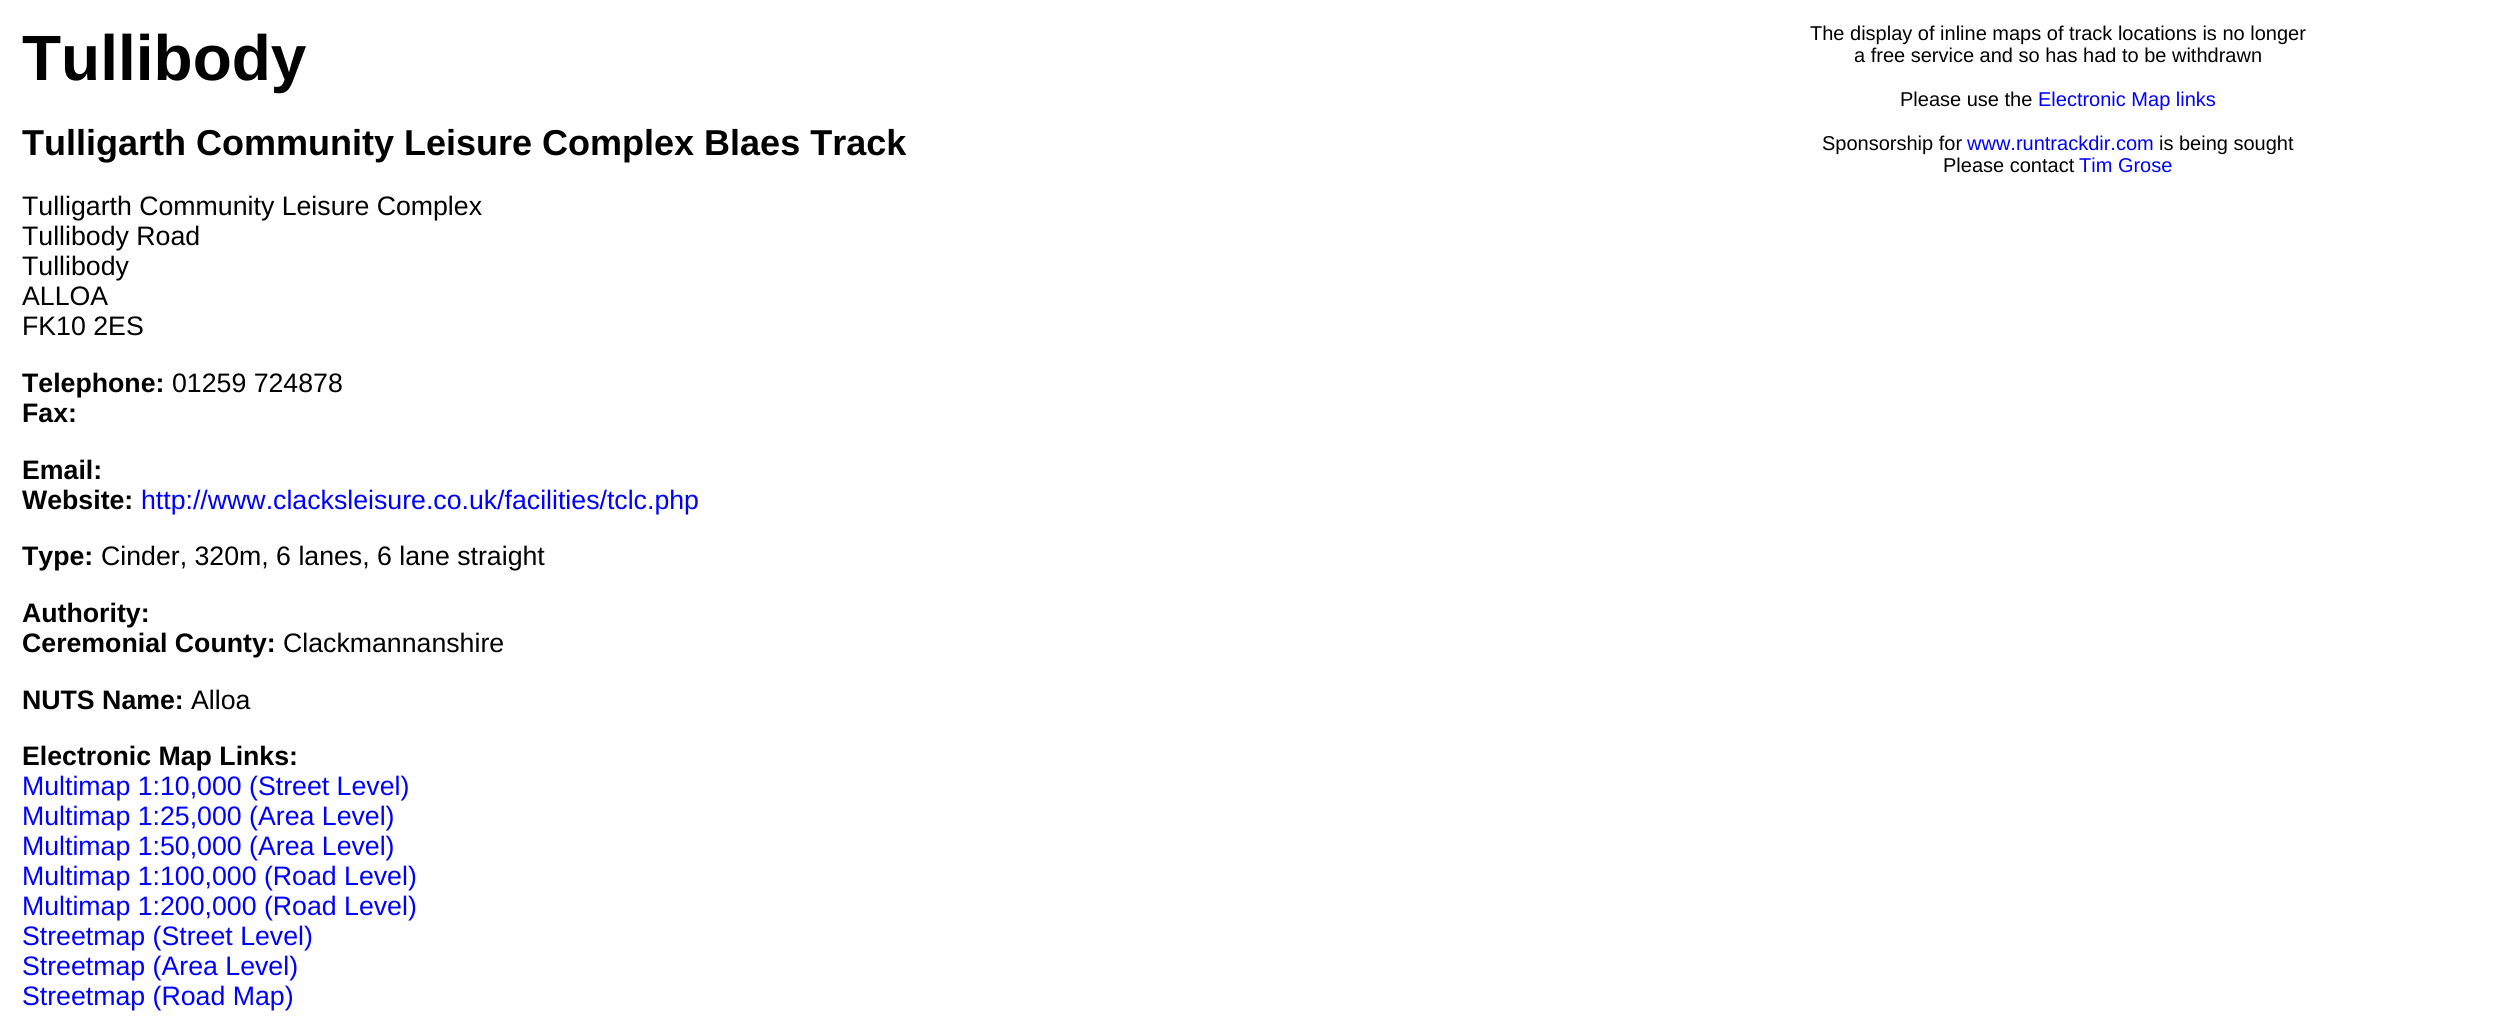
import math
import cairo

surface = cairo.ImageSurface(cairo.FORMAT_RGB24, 2517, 1021)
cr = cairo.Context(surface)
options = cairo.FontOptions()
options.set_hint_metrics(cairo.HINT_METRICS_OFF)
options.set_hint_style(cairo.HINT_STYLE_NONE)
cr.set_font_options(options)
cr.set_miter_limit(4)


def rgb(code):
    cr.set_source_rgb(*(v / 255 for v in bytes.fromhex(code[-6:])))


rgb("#ffffff")
cr.paint()
cr.select_font_face("Liberation Sans", cairo.FONT_SLANT_NORMAL, cairo.FONT_WEIGHT_BOLD)
cr.set_font_size(64)
rgb("#000000")
cr.move_to(22, 80)
cr.show_text("Tullibody")
cr.set_font_size(36)
cr.move_to(22, 155)
cr.show_text("Tulligarth Community Leisure Complex Blaes Track")
cr.select_font_face("Liberation Sans")
cr.set_font_size(26.7)
for x, y, s in [
    (22, 215, "Tulligarth Community Leisure Complex"),
    (22, 245, "Tullibody Road"),
    (22, 275, "Tullibody"),
    (22, 305, "ALLOA"),
    (22, 335, "FK10 2ES"),
]:
    cr.move_to(x, y)
    cr.show_text(s)
cr.select_font_face("Liberation Sans", cairo.FONT_SLANT_NORMAL, cairo.FONT_WEIGHT_BOLD)
cr.move_to(22, 392)
cr.show_text("Telephone:")
cr.select_font_face("Liberation Sans")
cr.move_to(172, 392)
cr.show_text("01259 724878")
cr.select_font_face("Liberation Sans", cairo.FONT_SLANT_NORMAL, cairo.FONT_WEIGHT_BOLD)
for x, y, s in [
    (22, 422, "Fax:"),
    (22, 479, "Email:"),
    (22, 509, "Website:"),
]:
    cr.move_to(x, y)
    cr.show_text(s)
cr.select_font_face("Liberation Sans")
rgb("#0000ff")
cr.move_to(141, 509)
cr.show_text("http://www.clacksleisure.co.uk/facilities/tclc.php")
cr.select_font_face("Liberation Sans", cairo.FONT_SLANT_NORMAL, cairo.FONT_WEIGHT_BOLD)
rgb("#000000")
cr.move_to(22, 565)
cr.show_text("Type:")
cr.select_font_face("Liberation Sans")
cr.move_to(101, 565)
cr.show_text("Cinder, 320m, 6 lanes, 6 lane straight")
cr.select_font_face("Liberation Sans", cairo.FONT_SLANT_NORMAL, cairo.FONT_WEIGHT_BOLD)
cr.move_to(22, 622)
cr.show_text("Authority:")
cr.move_to(22, 652)
cr.show_text("Ceremonial County:")
cr.select_font_face("Liberation Sans")
cr.move_to(283, 652)
cr.show_text("Clackmannanshire")
cr.select_font_face("Liberation Sans", cairo.FONT_SLANT_NORMAL, cairo.FONT_WEIGHT_BOLD)
cr.move_to(22, 709)
cr.show_text("NUTS Name:")
cr.select_font_face("Liberation Sans")
cr.move_to(191, 709)
cr.show_text("Alloa")
cr.select_font_face("Liberation Sans", cairo.FONT_SLANT_NORMAL, cairo.FONT_WEIGHT_BOLD)
cr.move_to(22, 765)
cr.show_text("Electronic Map Links:")
cr.select_font_face("Liberation Sans")
rgb("#0000ff")
for x, y, s in [
    (22, 795, "Multimap 1:10,000 (Street Level)"),
    (22, 825, "Multimap 1:25,000 (Area Level)"),
    (22, 855, "Multimap 1:50,000 (Area Level)"),
    (22, 885, "Multimap 1:100,000 (Road Level)"),
    (22, 915, "Multimap 1:200,000 (Road Level)"),
    (22, 945, "Streetmap (Street Level)"),
    (22, 975, "Streetmap (Area Level)"),
    (22, 1005, "Streetmap (Road Map)"),
]:
    cr.move_to(x, y)
    cr.show_text(s)
cr.set_font_size(20)
rgb("#000000")
for x, y, s in [
    (1810, 40, "The display of inline maps of track locations is no longer"),
    (1854, 62, "a free service and so has had to be withdrawn"),
    (1900, 106, "Please use the"),
]:
    cr.move_to(x, y)
    cr.show_text(s)
rgb("#0000ff")
cr.move_to(2038, 106)
cr.show_text("Electronic Map links")
rgb("#000000")
cr.move_to(1822, 150)
cr.show_text("Sponsorship for")
rgb("#0000ff")
cr.move_to(1967, 150)
cr.show_text("www.runtrackdir.com")
rgb("#000000")
cr.move_to(2159, 150)
cr.show_text("is being sought")
cr.move_to(1943, 172)
cr.show_text("Please contact")
rgb("#0000ff")
cr.move_to(2079, 172)
cr.show_text("Tim Grose")
surface.write_to_png("page.png")
